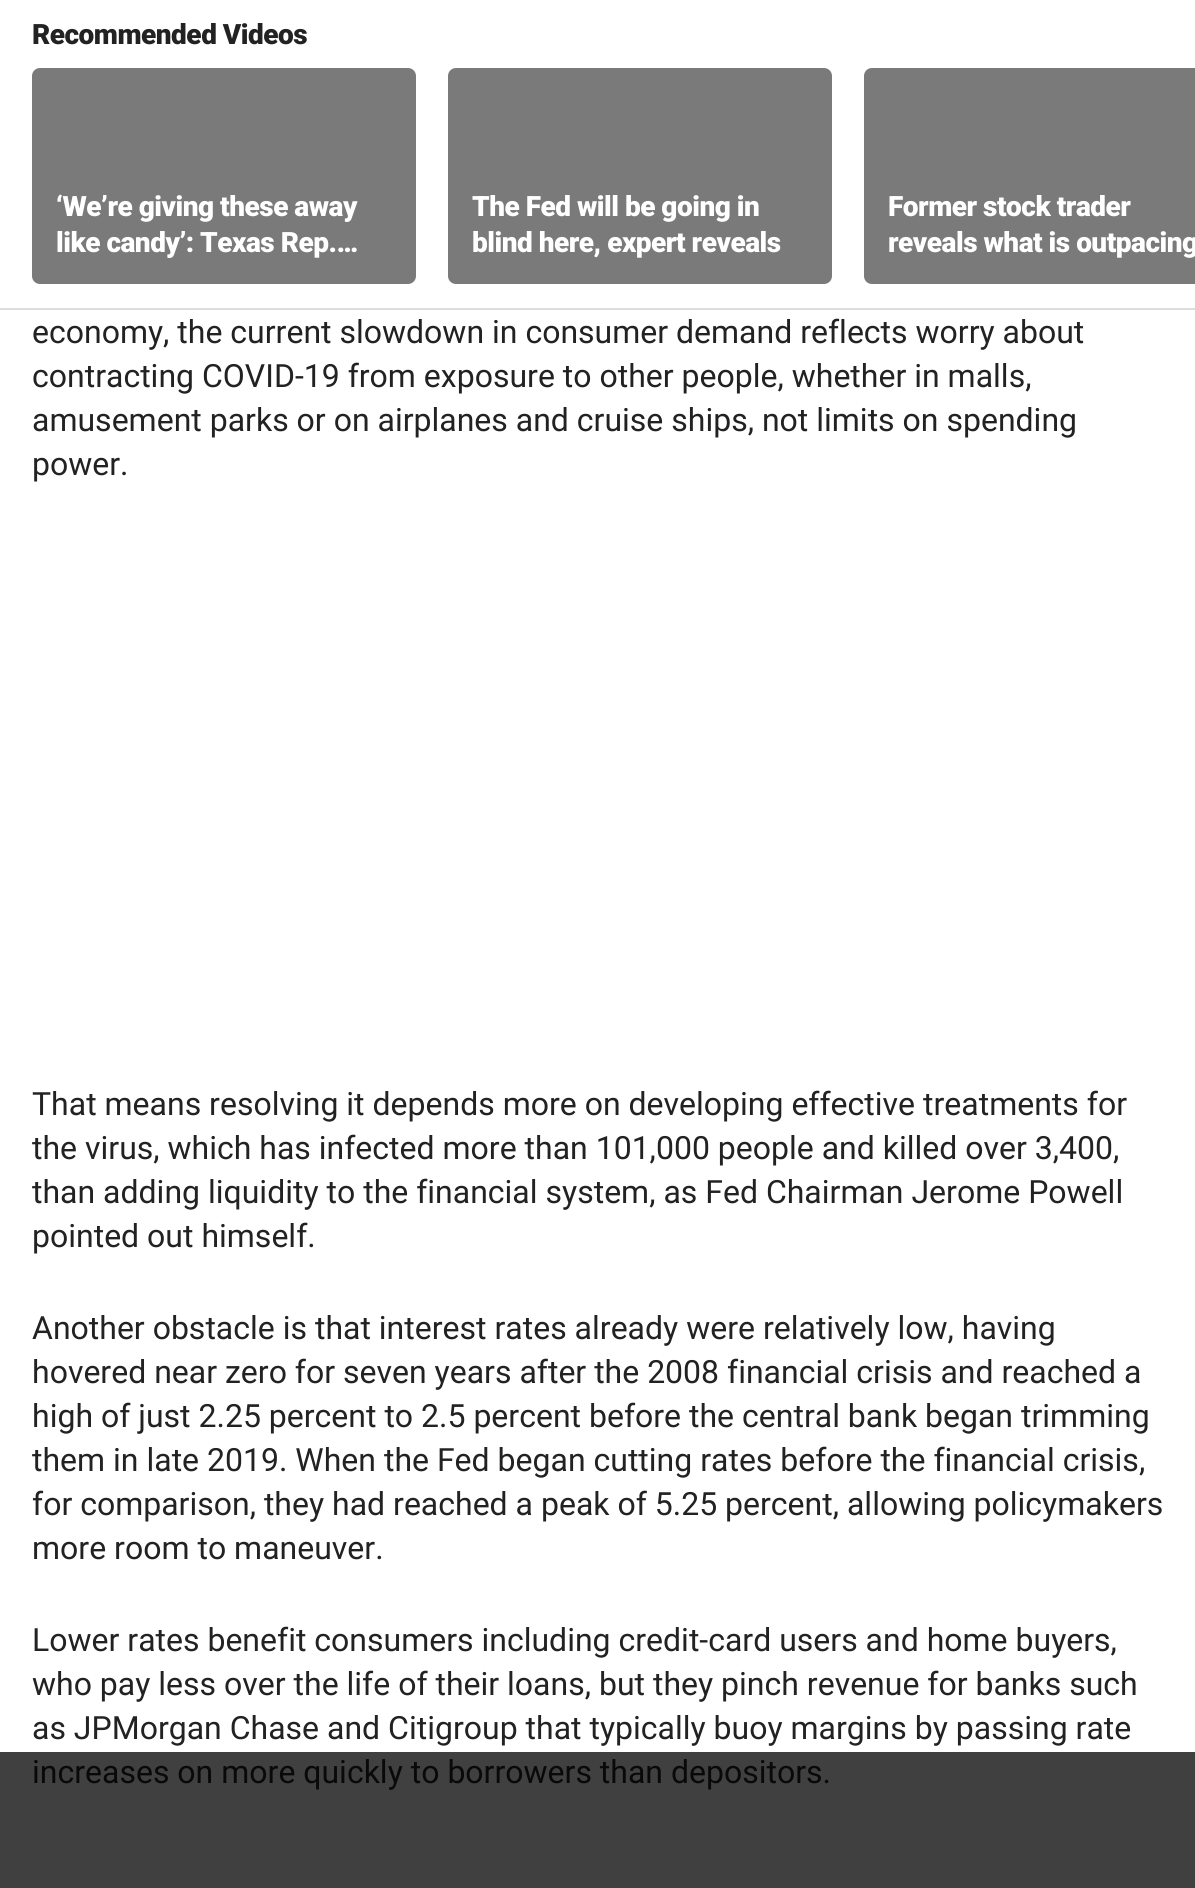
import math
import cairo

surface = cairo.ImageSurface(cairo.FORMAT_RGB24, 1195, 1888)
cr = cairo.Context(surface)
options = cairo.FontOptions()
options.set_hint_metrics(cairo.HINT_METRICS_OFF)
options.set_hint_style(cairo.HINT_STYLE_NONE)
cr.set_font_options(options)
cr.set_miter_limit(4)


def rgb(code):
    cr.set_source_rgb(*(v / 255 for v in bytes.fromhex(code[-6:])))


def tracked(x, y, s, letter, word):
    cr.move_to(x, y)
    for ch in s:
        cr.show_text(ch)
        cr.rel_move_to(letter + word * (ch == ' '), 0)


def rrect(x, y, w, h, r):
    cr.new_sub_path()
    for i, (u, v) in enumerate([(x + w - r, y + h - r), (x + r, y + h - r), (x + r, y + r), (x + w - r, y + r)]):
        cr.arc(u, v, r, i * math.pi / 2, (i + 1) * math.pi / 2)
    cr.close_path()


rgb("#ffffff")
cr.paint()
rgb("#404040")
cr.rectangle(0, 1752, 1195, 136)
cr.fill()
rgb("#dddddd")
cr.rectangle(0, 308, 1195, 2)
cr.fill()
rgb("#f4f4f4")
rrect(32, 68, 384, 216, 8)
cr.fill()
cr.set_source_rgba(0, 0, 0, 0.5)
rrect(32, 68, 384, 216, 8)
cr.fill()
rgb("#f4f4f4")
rrect(448, 68, 384, 216, 8)
cr.fill()
cr.set_source_rgba(0, 0, 0, 0.5)
rrect(448, 68, 384, 216, 8)
cr.fill()
rgb("#f4f4f4")
cr.new_path()
cr.move_to(872, 68)
cr.line_to(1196, 68)
cr.line_to(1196, 284)
cr.line_to(872, 284)
cr.curve_to(867.5, 284, 864, 280.5, 864, 276)
cr.line_to(864, 76)
cr.curve_to(864, 71.5, 867.5, 68, 872, 68)
cr.close_path()
cr.fill()
cr.set_source_rgba(0, 0, 0, 0.5)
cr.new_path()
cr.move_to(872, 68)
cr.line_to(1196, 68)
cr.line_to(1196, 284)
cr.line_to(872, 284)
cr.curve_to(867.5, 284, 864, 280.5, 864, 276)
cr.line_to(864, 76)
cr.curve_to(864, 71.5, 867.5, 68, 872, 68)
cr.close_path()
cr.fill()
cr.select_font_face("Roboto Black")
cr.set_font_size(28)
rgb("#222222")
tracked(32, 44, "Recommended Videos", -0.5, 0)
rgb("#ffffff")
for x, y, s in [
    (56, 216, "‘We’re giving these away"),
    (56, 252, "like candy’: Texas Rep.…"),
    (472, 216, "The Fed will be going in"),
    (472, 252, "blind here, expert reveals"),
    (888, 216, "Former stock trader"),
    (888, 252, "reveals what is outpacing"),
]:
    tracked(x, y, s, -0.5, 0)
cr.select_font_face("Roboto")
cr.set_font_size(32)
rgb("#222222")
for x, y, s in [
    (32, 343, "economy, the current slowdown in consumer demand reflects worry about"),
    (32, 387, "contracting COVID-19 from exposure to other people, whether in malls,"),
    (32, 431, "amusement parks or on airplanes and cruise ships, not limits on spending"),
    (32, 475, "power."),
    (32, 1115, "That means resolving it depends more on developing effective treatments for"),
    (32, 1159, "the virus, which has infected more than 101,000 people and killed over 3,400,"),
    (32, 1203, "than adding liquidity to the financial system, as Fed Chairman Jerome Powell"),
    (32, 1247, "pointed out himself."),
    (32, 1339, "Another obstacle is that interest rates already were relatively low, having"),
    (32, 1383, "hovered near zero for seven years after the 2008 financial crisis and reached a"),
    (32, 1427, "high of just 2.25 percent to 2.5 percent before the central bank began trimming"),
    (32, 1471, "them in late 2019. When the Fed began cutting rates before the financial crisis,"),
    (32, 1515, "for comparison, they had reached a peak of 5.25 percent, allowing policymakers"),
    (32, 1559, "more room to maneuver."),
    (32, 1651, "Lower rates benefit consumers including credit-card users and home buyers,"),
    (32, 1695, "who pay less over the life of their loans, but they pinch revenue for banks such"),
    (32, 1739, "as JPMorgan Chase and Citigroup that typically buoy margins by passing rate"),
]:
    cr.move_to(x, y)
    cr.show_text(s)
rgb("#090909")
cr.move_to(32, 1783)
cr.show_text("increases on more quickly to borrowers than depositors.")
surface.write_to_png("page.png")
